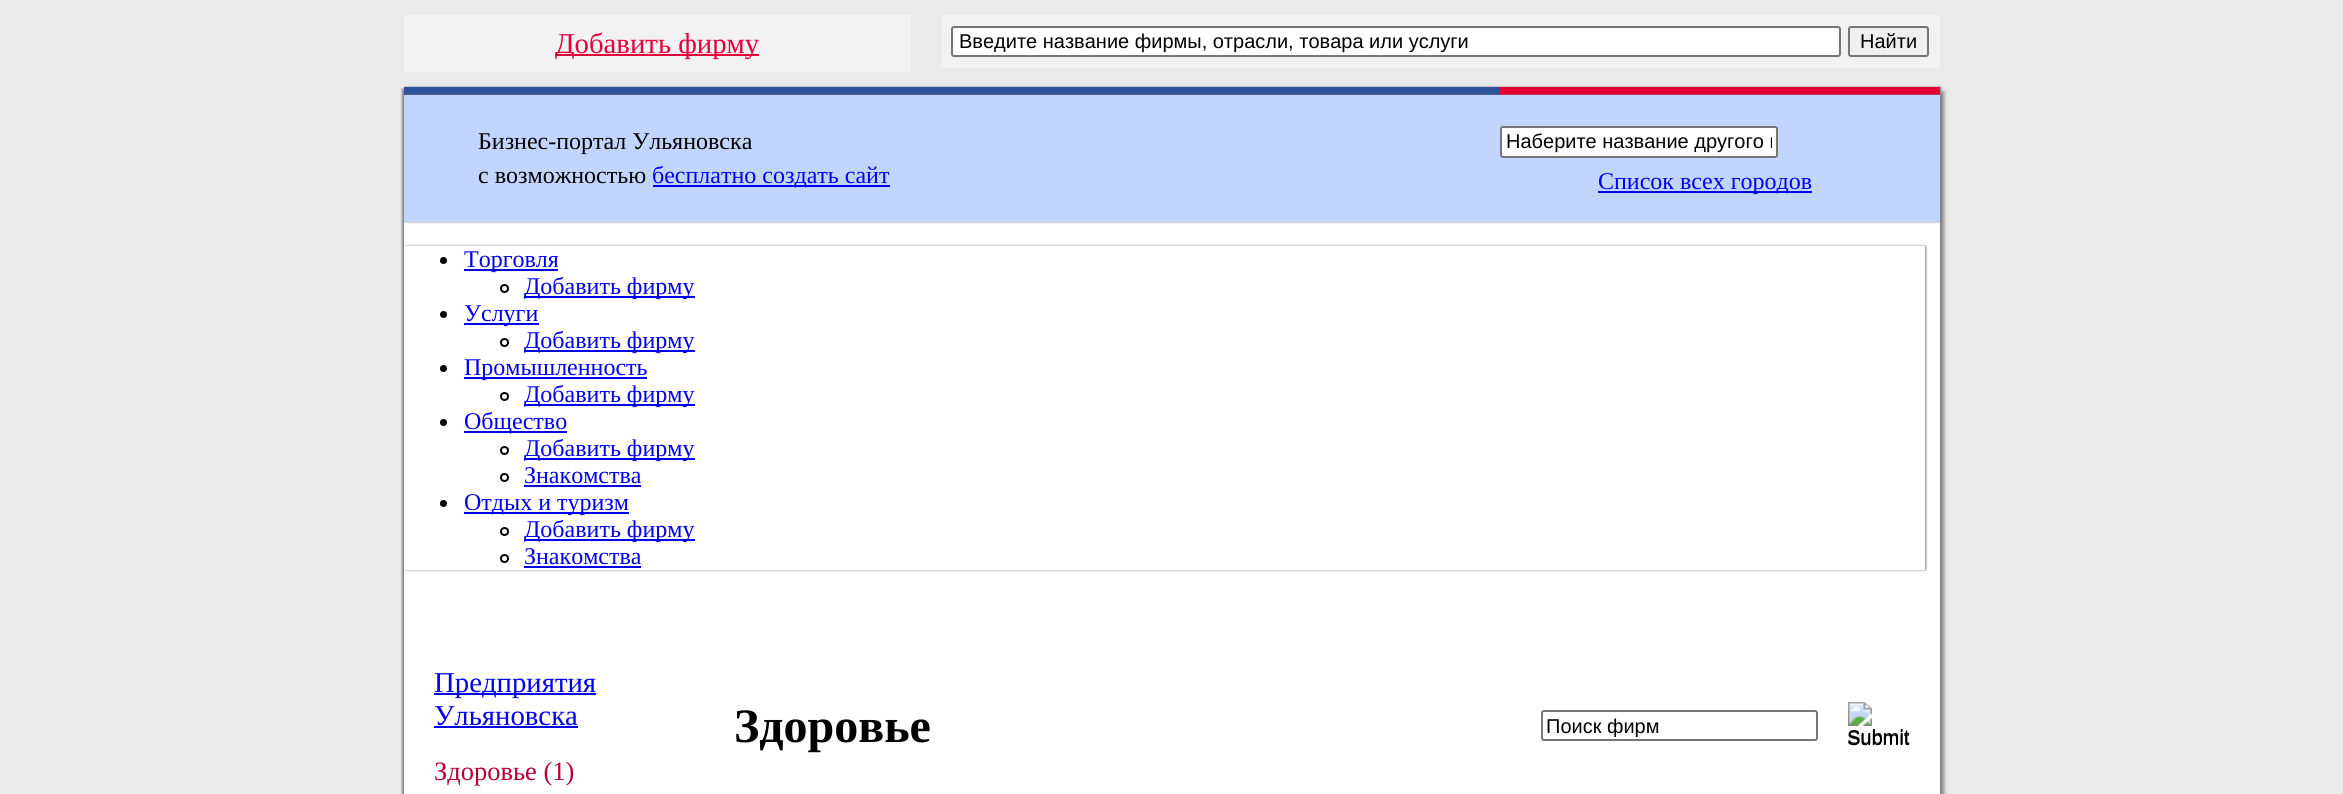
import math
import cairo

surface = cairo.ImageSurface(cairo.FORMAT_RGB24, 2343, 794)
cr = cairo.Context(surface)
options = cairo.FontOptions()
options.set_hint_metrics(cairo.HINT_METRICS_OFF)
options.set_hint_style(cairo.HINT_STYLE_NONE)
cr.set_font_options(options)
cr.set_miter_limit(4)


def rgb(code):
    cr.set_source_rgb(*(v / 255 for v in bytes.fromhex(code[-6:])))


def rrect(x, y, w, h, r):
    cr.new_sub_path()
    for i, (u, v) in enumerate([(x + w - r, y + h - r), (x + r, y + h - r), (x + r, y + r), (x + w - r, y + r)]):
        cr.arc(u, v, r, i * math.pi / 2, (i + 1) * math.pi / 2)
    cr.close_path()


def soft_shadow(x, y, w, h, r, blur, alpha):
    cr.push_group_with_content(cairo.CONTENT_ALPHA)
    cr.set_operator(cairo.OPERATOR_SOURCE)
    for i in range(15, -16, -2):
        e = blur * i / 6
        if min(w, h) + 2 * e > 0:
            cr.set_source_rgba(0, 0, 0, alpha * math.erfc((i - 1) / 8.5) / 2)
            rrect(x - e, y - e, w + 2 * e, h + 2 * e, max(0, min(r + e + blur * .6, min(w, h) / 2 + e)))
            cr.fill()
    cr.mask(cr.pop_group())


def image(path, x, y, w, h):
    cr.save()
    cr.set_source_surface(cairo.ImageSurface.create_from_png(path), x, y)
    cr.rectangle(x, y, w, h)
    cr.fill()
    cr.restore()


rgb("#eaeaea")
cr.paint()
for x, y, w, h, color in [
    (404, 15, 507, 57, "#f2f2f2"),
    (555, 54, 204, 2, "#e40037"),
    (941, 15, 999, 53, "#f2f2f2"),
]:
    rgb(color)
    cr.rectangle(x, y, w, h)
    cr.fill()
rgb("#ffffff")
rrect(952, 27, 888, 29, 2)
cr.fill_preserve()
rgb("#767676")
cr.stroke()
rgb("#efefef")
rrect(1849, 27, 79, 29, 2)
cr.fill_preserve()
rgb("#767676")
cr.stroke()
rgb("#838383")
soft_shadow(402, 89, 1536, 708, 0, 1, 1)
soft_shadow(408, 92, 1536, 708, 0, 2, 1)
rgb("#ffffff")
cr.rectangle(404, 222, 1536, 572)
cr.fill()
rgb("#838383")
soft_shadow(405, 87, 1536, 8, 0, 1, 1)
rgb("#2d509a")
cr.rectangle(404, 87, 1095, 8)
cr.fill()
rgb("#e50033")
cr.rectangle(1499, 87, 441, 8)
cr.fill()
rgb("#838383")
soft_shadow(405, 95, 1536, 127, 0, 1, 1)
rgb("#c1d5ff")
cr.rectangle(404, 95, 1536, 127)
cr.fill()
rgb("#0000ee")
cr.rectangle(653, 185, 237, 2)
cr.fill()
rgb("#ffffff")
rrect(1501, 127, 276, 30, 2)
cr.fill_preserve()
rgb("#767676")
cr.stroke()
rgb("#0000ee")
cr.rectangle(1598, 191, 214, 2)
cr.fill()
cr.save()
cr.set_fill_rule(cairo.FILL_RULE_EVEN_ODD)
cr.new_path()
cr.move_to(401, 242)
cr.line_to(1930, 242)
cr.line_to(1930, 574)
cr.line_to(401, 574)
cr.close_path()
cr.move_to(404, 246)
cr.line_to(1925, 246)
cr.line_to(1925, 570)
cr.line_to(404, 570)
cr.close_path()
cr.clip()
rgb("#838383")
soft_shadow(405, 246, 1521, 324, 0, 1, 1)
cr.restore()
rgb("#000000")
cr.arc(443.5, 260.5, 3.5, 0, 2 * math.pi)
cr.fill()
rgb("#0000ee")
cr.rectangle(464, 269, 94, 2)
cr.fill()
cr.arc(504.5, 288.5, 3.5, 0, 2 * math.pi)
rgb("#000000")
cr.stroke()
rgb("#0000ee")
cr.rectangle(524, 296, 171, 2)
cr.fill()
rgb("#000000")
cr.arc(443.5, 314.5, 3.5, 0, 2 * math.pi)
cr.fill()
rgb("#0000ee")
cr.rectangle(464, 323, 75, 2)
cr.fill()
cr.arc(504.5, 342.5, 3.5, 0, 2 * math.pi)
rgb("#000000")
cr.stroke()
rgb("#0000ee")
cr.rectangle(524, 350, 171, 2)
cr.fill()
rgb("#000000")
cr.arc(443.5, 368.5, 3.5, 0, 2 * math.pi)
cr.fill()
rgb("#0000ee")
cr.rectangle(464, 377, 183, 2)
cr.fill()
cr.arc(504.5, 396.5, 3.5, 0, 2 * math.pi)
rgb("#000000")
cr.stroke()
rgb("#0000ee")
cr.rectangle(524, 404, 171, 2)
cr.fill()
rgb("#000000")
cr.arc(443.5, 422.5, 3.5, 0, 2 * math.pi)
cr.fill()
rgb("#0000ee")
cr.rectangle(464, 431, 103, 2)
cr.fill()
cr.arc(504.5, 450.5, 3.5, 0, 2 * math.pi)
rgb("#000000")
cr.stroke()
rgb("#0000ee")
cr.rectangle(524, 458, 171, 2)
cr.fill()
cr.arc(504.5, 477.5, 3.5, 0, 2 * math.pi)
rgb("#000000")
cr.stroke()
rgb("#0000ee")
cr.rectangle(524, 485, 117, 2)
cr.fill()
rgb("#000000")
cr.arc(443.5, 503.5, 3.5, 0, 2 * math.pi)
cr.fill()
rgb("#0000ee")
cr.rectangle(464, 512, 165, 2)
cr.fill()
cr.arc(504.5, 531.5, 3.5, 0, 2 * math.pi)
rgb("#000000")
cr.stroke()
rgb("#0000ee")
cr.rectangle(524, 539, 171, 2)
cr.fill()
cr.arc(504.5, 558.5, 3.5, 0, 2 * math.pi)
rgb("#000000")
cr.stroke()
for x, y, w, h, color in [
    (524, 566, 117, 2, "#0000ee"),
    (434, 693, 162, 2, "#0000ee"),
    (434, 726, 144, 2, "#0000ee"),
]:
    rgb(color)
    cr.rectangle(x, y, w, h)
    cr.fill()
rrect(1542, 711, 275, 29, 2)
rgb("#767676")
cr.stroke()
image("img/1.png", 1848, 702, 62, 42)
cr.select_font_face("Liberation Serif")
cr.set_font_size(28.75)
rgb("#e40037")
cr.move_to(555, 53)
cr.show_text("Добавить фирму")
cr.select_font_face("Liberation Sans")
cr.set_font_size(20)
rgb("#000000")
cr.move_to(959, 48)
cr.show_text("Введите название фирмы, отрасли, товара или услуги")
cr.move_to(1860, 48)
cr.show_text("Найти")
cr.select_font_face("Liberation Serif")
cr.set_font_size(24)
cr.move_to(478, 149)
cr.show_text("Бизнес-портал Ульяновска")
cr.move_to(478, 183)
cr.show_text("с возможностью")
rgb("#0000ee")
cr.move_to(652, 183)
cr.show_text("бесплатно создать сайт")
cr.save()
cr.rectangle(1506, 131, 266, 22)
cr.clip()
cr.select_font_face("Liberation Sans")
cr.set_font_size(20)
rgb("#000000")
cr.move_to(1506, 148)
cr.show_text("Наберите название другого г")
cr.restore()
for x, y, s in [
    (1598, 189, "Список всех городов"),
    (464, 267, "Торговля"),
    (524, 294, "Добавить фирму"),
    (464, 321, "Услуги"),
    (524, 348, "Добавить фирму"),
    (464, 375, "Промышленность"),
    (524, 402, "Добавить фирму"),
    (464, 429, "Общество"),
    (524, 456, "Добавить фирму"),
    (524, 483, "Знакомства"),
    (464, 510, "Отдых и туризм"),
    (524, 537, "Добавить фирму"),
    (524, 564, "Знакомства"),
]:
    cr.move_to(x, y)
    cr.show_text(s)
cr.set_font_size(28.75)
cr.move_to(434, 692)
cr.show_text("Предприятия")
cr.move_to(434, 725)
cr.show_text("Ульяновска")
cr.set_font_size(26.5)
rgb("#b60033")
cr.move_to(434, 780)
cr.show_text("Здоровье (1)")
cr.select_font_face("Liberation Serif", cairo.FONT_SLANT_NORMAL, cairo.FONT_WEIGHT_BOLD)
cr.set_font_size(48)
rgb("#000000")
cr.move_to(734, 742)
cr.show_text("Здоровье")
cr.save()
cr.rectangle(1547, 714, 265, 23)
cr.clip()
cr.select_font_face("Liberation Sans")
cr.set_font_size(20)
cr.move_to(1546, 733)
cr.show_text("Поиск фирм")
cr.restore()
cr.select_font_face("Liberation Sans")
cr.set_font_size(20)
cr.move_to(1847, 745)
cr.show_text("Submit")
surface.write_to_png("page.png")
